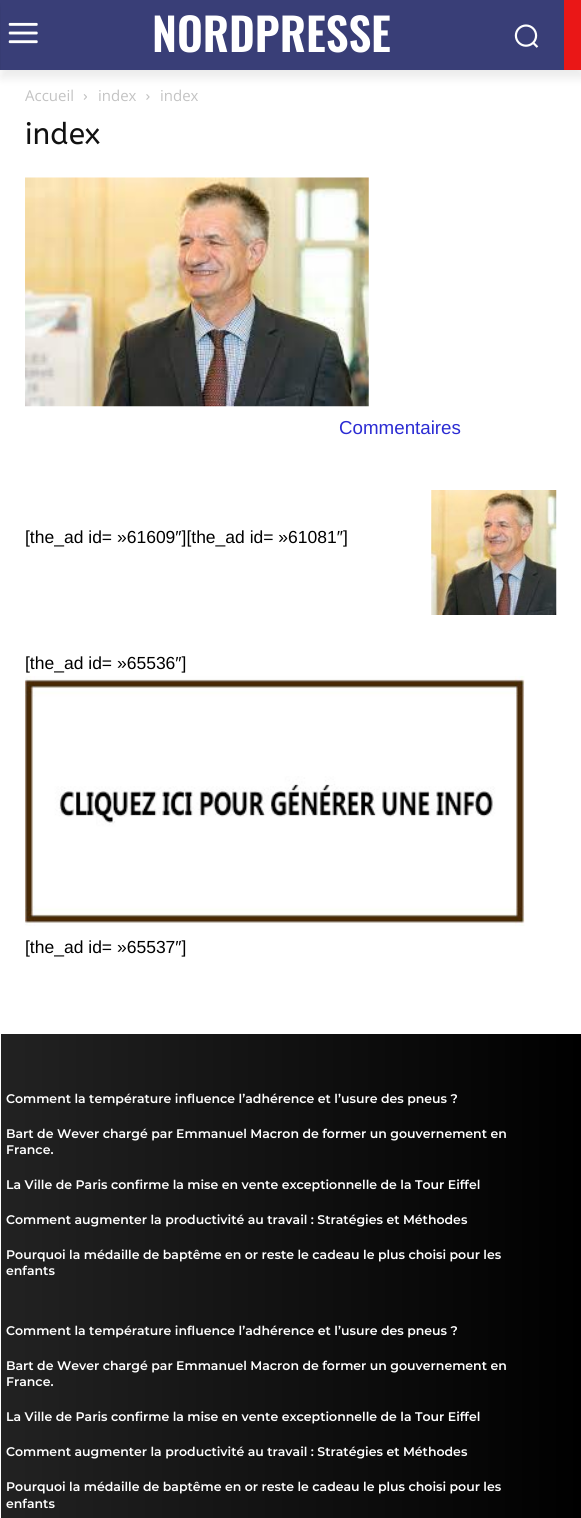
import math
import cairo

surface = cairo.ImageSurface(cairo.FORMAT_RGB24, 581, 1518)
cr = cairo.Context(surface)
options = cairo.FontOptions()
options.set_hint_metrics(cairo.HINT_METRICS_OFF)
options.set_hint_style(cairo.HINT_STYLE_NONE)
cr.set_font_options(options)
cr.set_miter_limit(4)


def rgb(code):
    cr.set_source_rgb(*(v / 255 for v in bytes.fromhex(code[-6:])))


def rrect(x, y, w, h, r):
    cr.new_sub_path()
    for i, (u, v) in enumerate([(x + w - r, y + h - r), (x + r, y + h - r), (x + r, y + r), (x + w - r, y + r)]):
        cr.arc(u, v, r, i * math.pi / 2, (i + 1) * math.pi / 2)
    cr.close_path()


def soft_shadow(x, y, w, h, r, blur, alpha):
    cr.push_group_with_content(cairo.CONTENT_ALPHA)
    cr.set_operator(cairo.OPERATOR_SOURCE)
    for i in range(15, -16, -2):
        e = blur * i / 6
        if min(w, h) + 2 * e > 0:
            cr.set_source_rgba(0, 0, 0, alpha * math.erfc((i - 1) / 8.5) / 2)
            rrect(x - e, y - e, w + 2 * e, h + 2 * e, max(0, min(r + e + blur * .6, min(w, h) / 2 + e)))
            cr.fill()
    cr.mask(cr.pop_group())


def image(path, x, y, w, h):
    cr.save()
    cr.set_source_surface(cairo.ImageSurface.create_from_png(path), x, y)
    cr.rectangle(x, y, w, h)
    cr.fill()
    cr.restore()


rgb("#ffffff")
cr.paint()
rgb("#393e77")
cr.rectangle(0, 0, 564, 70)
cr.fill()
image("img/1.png", 8, 22, 30, 22)
image("img/2.png", 514, 24, 25, 24)
rgb("#ea1717")
cr.rectangle(564, 0, 17, 70)
cr.fill()
cr.save()
cr.set_fill_rule(cairo.FILL_RULE_EVEN_ODD)
cr.new_path()
cr.move_to(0, 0)
cr.line_to(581, 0)
cr.line_to(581, 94)
cr.line_to(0, 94)
cr.close_path()
cr.move_to(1, 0)
cr.line_to(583, 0)
cr.line_to(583, 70)
cr.line_to(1, 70)
cr.close_path()
cr.clip()
rgb("#000000")
soft_shadow(1, 8, 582, 70, 0, 5, 0.08)
cr.restore()
image("img/3.png", 83, 94, 4, 6)
image("img/4.png", 146, 94, 4, 6)
image("img/5.png", 25, 177, 344, 230)
image("img/6.png", 431, 490, 126, 125)
image("img/7.png", 25, 676, 500, 250)
gradient = cairo.LinearGradient(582, 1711, 0.6, 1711)
gradient.add_color_stop_rgba(0, 0, 0, 0, 1)
gradient.add_color_stop_rgba(1, 0.133, 0.133, 0.133, 1)
cr.set_source(gradient)
cr.rectangle(1, 1034, 580, 484)
cr.fill()
cr.select_font_face("Oswald SemiBold")
cr.set_font_size(45)
rgb("#ffffff")
cr.move_to(152, 52)
cr.show_text("NORDPRESSE")
cr.select_font_face("Open Sans")
cr.set_font_size(15)
rgb("#c3c3c3")
for x, y, s in [
    (25, 101, "Accueil"),
    (98, 101, "index"),
    (160, 101, "index"),
]:
    cr.move_to(x, y)
    cr.show_text(s)
cr.select_font_face("ABeeZee")
cr.set_font_size(30)
rgb("#111111")
cr.move_to(25, 144)
cr.show_text("index")
cr.select_font_face("Liberation Sans")
cr.set_font_size(18.75)
rgb("#2c2cd3")
cr.move_to(339, 434)
cr.show_text("Commentaires")
cr.set_font_size(17.5)
rgb("#000000")
for x, y, s in [
    (25, 543, "[the_ad id= »61609″][the_ad id= »61081″]"),
    (25, 669, "[the_ad id= »65536″]"),
    (25, 953, "[the_ad id= »65537″]"),
]:
    cr.move_to(x, y)
    cr.show_text(s)
cr.select_font_face("Montserrat SemiBold")
cr.set_font_size(12.5)
rgb("#ffffff")
for x, y, s in [
    (6, 1103, "Comment la température influence l’adhérence et l’usure des pneus ?"),
    (6, 1138, "Bart de Wever chargé par Emmanuel Macron de former un gouvernement en"),
    (6, 1154, "France."),
    (6, 1189, "La Ville de Paris confirme la mise en vente exceptionnelle de la Tour Eiffel"),
    (6, 1224, "Comment augmenter la productivité au travail : Stratégies et Méthodes"),
    (6, 1259, "Pourquoi la médaille de baptême en or reste le cadeau le plus choisi pour les"),
    (6, 1275, "enfants"),
    (6, 1335, "Comment la température influence l’adhérence et l’usure des pneus ?"),
    (6, 1370, "Bart de Wever chargé par Emmanuel Macron de former un gouvernement en"),
    (6, 1386, "France."),
    (6, 1421, "La Ville de Paris confirme la mise en vente exceptionnelle de la Tour Eiffel"),
    (6, 1456, "Comment augmenter la productivité au travail : Stratégies et Méthodes"),
    (6, 1491, "Pourquoi la médaille de baptême en or reste le cadeau le plus choisi pour les"),
    (6, 1508, "enfants"),
]:
    cr.move_to(x, y)
    cr.show_text(s)
surface.write_to_png("page.png")
